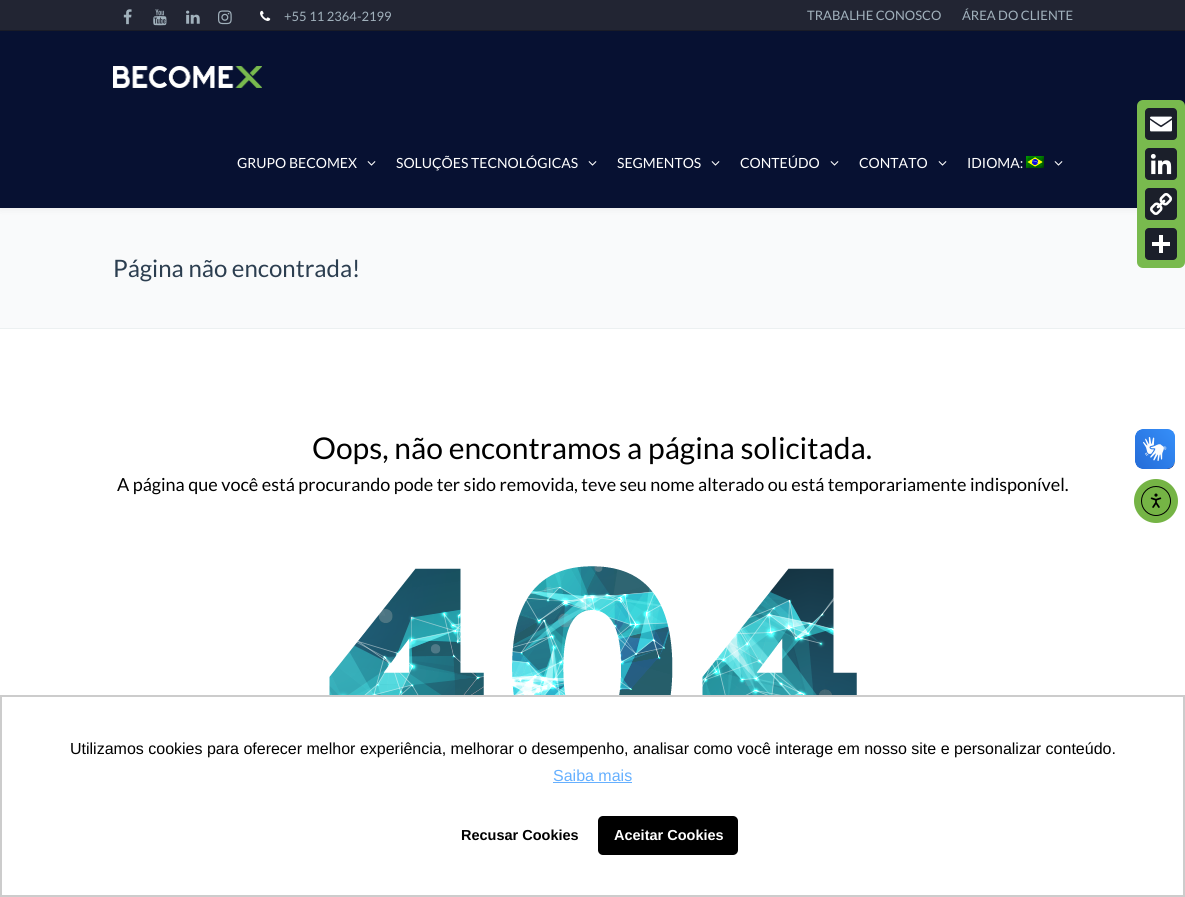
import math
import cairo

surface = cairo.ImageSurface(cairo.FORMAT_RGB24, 1185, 897)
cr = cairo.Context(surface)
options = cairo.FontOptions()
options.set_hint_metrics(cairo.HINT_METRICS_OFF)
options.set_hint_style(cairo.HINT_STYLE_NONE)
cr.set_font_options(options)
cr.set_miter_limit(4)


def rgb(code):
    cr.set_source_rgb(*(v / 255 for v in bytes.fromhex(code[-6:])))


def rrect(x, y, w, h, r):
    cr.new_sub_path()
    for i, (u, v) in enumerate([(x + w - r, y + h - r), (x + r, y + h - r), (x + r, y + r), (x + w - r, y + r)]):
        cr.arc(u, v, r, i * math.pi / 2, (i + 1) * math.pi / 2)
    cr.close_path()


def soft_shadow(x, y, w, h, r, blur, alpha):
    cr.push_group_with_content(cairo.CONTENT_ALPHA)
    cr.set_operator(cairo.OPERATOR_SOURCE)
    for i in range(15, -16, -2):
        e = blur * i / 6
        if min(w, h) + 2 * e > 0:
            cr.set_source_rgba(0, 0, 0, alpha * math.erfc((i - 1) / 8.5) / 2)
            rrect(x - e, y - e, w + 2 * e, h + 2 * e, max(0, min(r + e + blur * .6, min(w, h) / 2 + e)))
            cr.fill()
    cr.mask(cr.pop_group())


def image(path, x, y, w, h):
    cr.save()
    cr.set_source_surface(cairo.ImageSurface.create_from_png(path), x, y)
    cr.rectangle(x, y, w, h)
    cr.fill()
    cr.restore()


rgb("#ffffff")
cr.paint()
rgb("#222533")
cr.rectangle(0, 0, 1185, 30)
cr.fill()
rgb("#f9fafb")
cr.rectangle(0, 208, 1185, 120)
cr.fill()
rgb("#000000")
soft_shadow(0, 32, 1185, 178, 0, 3, 0.05)
image("img/1.png", 123, 9, 9, 16)
image("img/2.png", 153, 9, 14, 17)
image("img/3.png", 186, 10, 14, 14)
image("img/4.png", 218, 10, 14, 15)
image("img/5.png", 260, 10, 11, 11)
rgb("#071132")
cr.rectangle(0, 31, 1185, 177)
cr.fill()
rgb("#1a1c27")
cr.rectangle(0, 30, 1185, 1)
cr.fill()
image("img/6.png", 113, 66, 149, 22)
image("img/7.png", 367, 161, 9, 5)
image("img/7.png", 588, 161, 9, 5)
image("img/7.png", 711, 161, 9, 5)
image("img/7.png", 830, 161, 9, 5)
image("img/7.png", 938, 161, 9, 5)
image("img/8.png", 1026, 156, 18, 12)
image("img/7.png", 1054, 161, 9, 5)
rgb("#ecf0f1")
cr.rectangle(0, 328, 1185, 1)
cr.fill()
image("img/9.png", 329, 566, 528, 129)
rgb("#79ba4e")
rrect(1137, 100, 48, 168, 6)
cr.fill()
rgb("#1b1f2a")
rrect(1145, 108, 32, 32, 4)
cr.fill()
image("img/10.png", 1150, 116, 22, 16)
rrect(1145, 148, 32, 32, 4)
cr.fill()
image("img/11.png", 1150, 153, 22, 22)
rrect(1145, 188, 32, 32, 4)
cr.fill()
image("img/12.png", 1150, 193, 22, 22)
rrect(1145, 228, 32, 32, 4)
cr.fill()
rgb("#ffffff")
cr.rectangle(1159, 235, 4, 18)
cr.fill()
cr.rectangle(1152, 242, 18, 4)
cr.fill()
image("img/13.png", 1135, 429, 40, 40)
image("img/14.png", 1135, 429, 40, 40)
rgb("#75b445")
cr.arc(1156, 501, 22, 0, 2 * math.pi)
cr.fill()
cr.arc(1156, 501, 14.5, 0, 2 * math.pi)
rgb("#000000")
cr.set_line_width(1)
cr.stroke()
image("img/15.png", 1150, 493, 12, 15)
cr.rectangle(1, 696, 1183, 200)
rgb("#cccccc")
cr.set_line_width(2)
cr.stroke()
rgb("#66b0ff")
cr.rectangle(553, 782, 79, 1)
cr.fill()
rgb("#000000")
rrect(598, 816, 140, 39, 5)
cr.fill()
cr.select_font_face("Lato")
cr.set_font_size(13)
rgb("#a1b1bc")
for x, y, s in [
    (284, 21, "+55 11 2364-2199"),
    (807, 20, "TRABALHE CONOSCO"),
    (962, 20, "ÁREA DO CLIENTE"),
]:
    cr.move_to(x, y)
    cr.show_text(s)
cr.set_font_size(14)
rgb("#ffffff")
for x, y, s in [
    (237, 168, "GRUPO BECOMEX"),
    (396, 168, "SOLUÇÕES TECNOLÓGICAS"),
    (617, 168, "SEGMENTOS"),
    (740, 168, "CONTEÚDO"),
    (859, 168, "CONTATO"),
    (967, 168, "IDIOMA:"),
]:
    cr.move_to(x, y)
    cr.show_text(s)
cr.set_font_size(24)
rgb("#2c3e50")
cr.move_to(113, 277)
cr.show_text("Página não encontrada!")
cr.set_font_size(30)
rgb("#000000")
cr.move_to(312, 459)
cr.show_text("Oops, não encontramos a página solicitada.")
cr.set_font_size(18)
cr.move_to(117, 491)
cr.show_text("A página que você está procurando pode ter sido removida, teve seu nome alterado ou está temporariamente indisponível.")
cr.select_font_face("Liberation Sans")
cr.set_font_size(16)
cr.move_to(70, 754)
cr.show_text("Utilizamos cookies para oferecer melhor experiência, melhorar o desempenho, analisar como você interage em nosso site e personalizar conteúdo.")
rgb("#66b0ff")
cr.move_to(553, 781)
cr.show_text("Saiba mais")
cr.select_font_face("Liberation Sans", cairo.FONT_SLANT_NORMAL, cairo.FONT_WEIGHT_BOLD)
cr.set_font_size(14.5)
rgb("#000000")
cr.move_to(461, 840)
cr.show_text("Recusar Cookies")
rgb("#ffffff")
cr.move_to(614, 840)
cr.show_text("Aceitar Cookies")
surface.write_to_png("page.png")
